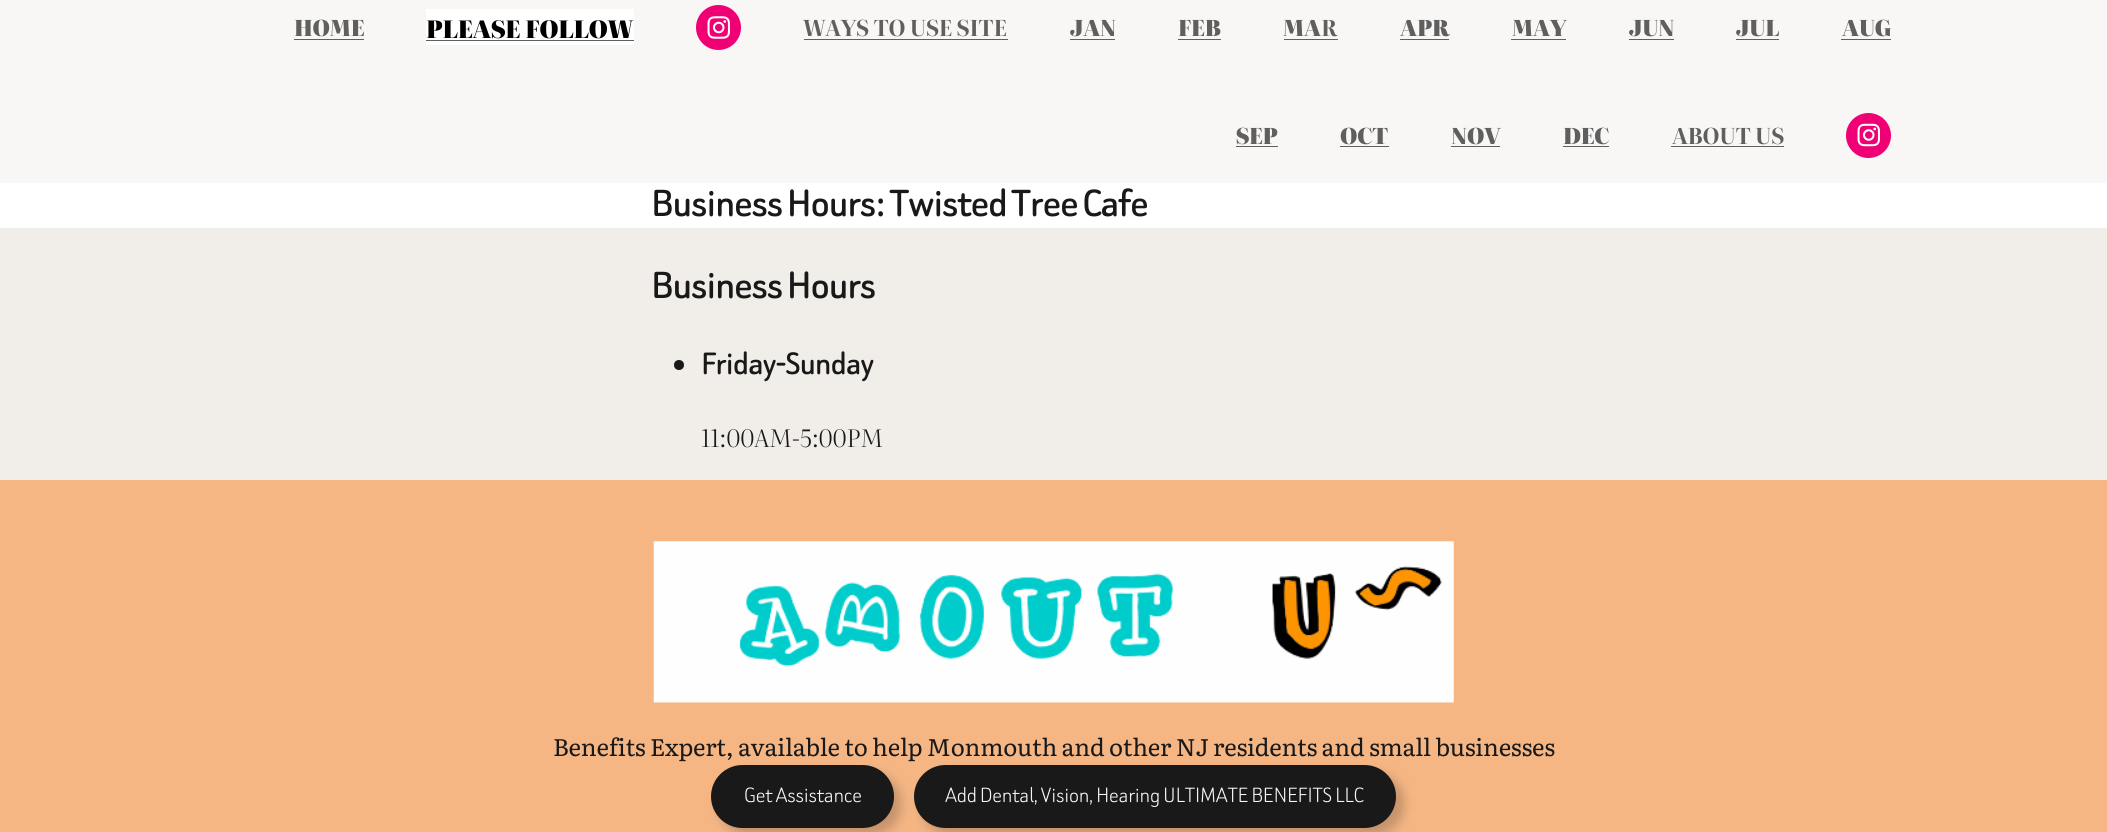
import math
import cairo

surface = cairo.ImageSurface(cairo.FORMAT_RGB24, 2107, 832)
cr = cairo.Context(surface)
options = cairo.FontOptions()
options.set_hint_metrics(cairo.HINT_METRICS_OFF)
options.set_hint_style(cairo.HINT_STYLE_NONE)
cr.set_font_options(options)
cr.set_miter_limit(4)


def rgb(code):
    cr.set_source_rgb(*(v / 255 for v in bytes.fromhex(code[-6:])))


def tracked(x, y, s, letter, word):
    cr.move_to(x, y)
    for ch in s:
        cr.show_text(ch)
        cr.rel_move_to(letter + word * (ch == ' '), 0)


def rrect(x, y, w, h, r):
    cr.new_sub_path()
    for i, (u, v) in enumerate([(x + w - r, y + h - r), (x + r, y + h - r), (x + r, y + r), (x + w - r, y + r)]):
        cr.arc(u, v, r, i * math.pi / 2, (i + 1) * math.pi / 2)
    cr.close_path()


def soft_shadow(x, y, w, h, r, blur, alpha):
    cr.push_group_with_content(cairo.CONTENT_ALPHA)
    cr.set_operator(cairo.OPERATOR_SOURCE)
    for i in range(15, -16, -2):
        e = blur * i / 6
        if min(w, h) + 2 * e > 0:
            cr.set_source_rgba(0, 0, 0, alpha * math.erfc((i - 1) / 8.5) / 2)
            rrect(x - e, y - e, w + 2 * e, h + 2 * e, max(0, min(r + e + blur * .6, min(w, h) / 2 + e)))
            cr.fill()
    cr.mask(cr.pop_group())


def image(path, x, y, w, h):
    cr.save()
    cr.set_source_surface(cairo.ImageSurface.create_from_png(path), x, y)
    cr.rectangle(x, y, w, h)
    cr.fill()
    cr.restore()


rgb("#f8f7f5")
cr.paint()
for x, y, w, h, color in [
    (294, 39, 70, 1, "#5f5f5f"),
    (426, 9, 208, 36, "#ffffff"),
    (426, 40, 208, 1, "#5f5f5f"),
]:
    rgb(color)
    cr.rectangle(x, y, w, h)
    cr.fill()
rgb("#f00075")
cr.arc(718.5, 27.5, 22.5, 0, 2 * math.pi)
cr.fill()
image("img/1.png", 707, 16, 23, 23)
for x, y, w, h, color in [
    (804, 39, 204, 1, "#5f5f5f"),
    (1070, 39, 45, 1, "#5f5f5f"),
    (1178, 39, 43, 1, "#5f5f5f"),
    (1284, 39, 54, 1, "#5f5f5f"),
    (1400, 39, 49, 1, "#5f5f5f"),
    (1511, 39, 55, 1, "#5f5f5f"),
    (1629, 39, 45, 1, "#5f5f5f"),
    (1736, 39, 43, 1, "#5f5f5f"),
    (1841, 39, 50, 1, "#5f5f5f"),
    (1236, 146, 42, 1, "#5f5f5f"),
    (1340, 146, 49, 1, "#5f5f5f"),
    (1451, 146, 49, 1, "#5f5f5f"),
    (1563, 146, 46, 1, "#5f5f5f"),
    (1671, 146, 113, 1, "#5f5f5f"),
]:
    rgb(color)
    cr.rectangle(x, y, w, h)
    cr.fill()
rgb("#f00075")
cr.arc(1868.5, 135.5, 22.5, 0, 2 * math.pi)
cr.fill()
image("img/2.png", 1857, 123, 23, 24)
rgb("#ffffff")
cr.rectangle(0, 183, 2107, 45)
cr.fill()
rgb("#f1eee9")
cr.rectangle(0, 228, 2107, 252)
cr.fill()
rgb("#191919")
cr.arc(679, 365, 5, 0, 2 * math.pi)
cr.fill()
rgb("#f5b684")
cr.rectangle(0, 480, 2107, 352)
cr.fill()
image("img/3.png", 653, 541, 801, 162)
rgb("#000000")
soft_shadow(719, 773, 182, 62, 31, 5.5, 0.2)
rgb("#191919")
rrect(711, 765, 183, 63, 31.5)
cr.fill()
rgb("#000000")
soft_shadow(921, 773, 483, 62, 31, 5.5, 0.2)
rgb("#191919")
rrect(914, 765, 482, 63, 31.5)
cr.fill()
cr.select_font_face("Literata Black")
cr.set_font_size(22)
rgb("#5f5f5f")
tracked(294, 36, "HOME", -0.25, 0)
cr.set_font_size(24)
rgb("#000000")
tracked(426, 38, "PLEASE FOLLOW", -0.25, 0)
cr.select_font_face("Literata", cairo.FONT_SLANT_NORMAL, cairo.FONT_WEIGHT_BOLD)
cr.set_font_size(22)
rgb("#5f5f5f")
tracked(803, 36, "WAYS TO USE SITE", -0.25, 0)
cr.select_font_face("Literata Black")
for x, y, s in [
    (1070, 36, "JAN"),
    (1178, 36, "FEB"),
    (1283, 36, "MA"),
]:
    tracked(x, y, s, -0.25, 0)
cr.select_font_face("Literata", cairo.FONT_SLANT_NORMAL, cairo.FONT_WEIGHT_BOLD)
tracked(1321, 36, "R", -0.25, 0)
cr.select_font_face("Literata Black")
for x, y, s in [
    (1400, 36, "APR"),
    (1512, 36, "MAY"),
    (1629, 36, "JUN"),
    (1736, 36, "JUL"),
    (1842, 36, "AUG"),
    (1236, 144, "SEP"),
    (1340, 144, "OCT"),
    (1451, 144, "NOV"),
    (1563, 144, "DEC"),
]:
    tracked(x, y, s, -0.25, 0)
cr.select_font_face("Literata", cairo.FONT_SLANT_NORMAL, cairo.FONT_WEIGHT_BOLD)
tracked(1672, 144, "ABOUT US", -0.25, 0)
cr.select_font_face("Beiruti Medium")
cr.set_font_size(44)
rgb("#191919")
tracked(651, 216, "Business Hours: Twisted Tree Cafe", -0.9, 0)
tracked(651, 298, "Business Hours", -0.9, 0)
cr.set_font_size(36)
tracked(701, 374, "Friday-Sunday", -0.75, 0)
cr.select_font_face("Literata Light")
cr.set_font_size(24)
tracked(701, 447, "11:00AM-5:00PM", -0.25, 0)
cr.select_font_face("Literata")
tracked(553, 756, "Benefits Expert, available to help Monmouth and other NJ residents and small businesses", -0.25, 0)
cr.select_font_face("Beiruti Light")
rgb("#f8f7f5")
tracked(744, 802, "Get Assistance", -0.25, 0)
tracked(945, 802, "Add Dental, Vision, Hearing ULTIMATE BENEFITS LLC", -0.25, 0)
surface.write_to_png("page.png")
